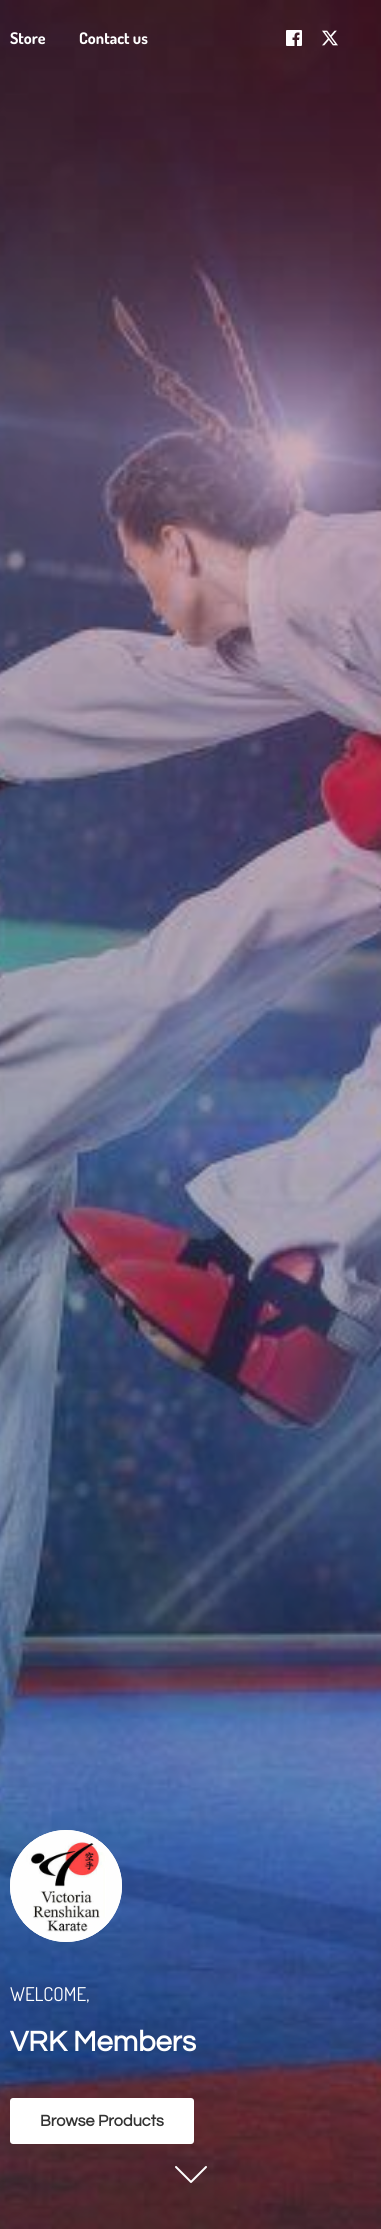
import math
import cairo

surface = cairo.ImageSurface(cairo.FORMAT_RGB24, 381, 2229)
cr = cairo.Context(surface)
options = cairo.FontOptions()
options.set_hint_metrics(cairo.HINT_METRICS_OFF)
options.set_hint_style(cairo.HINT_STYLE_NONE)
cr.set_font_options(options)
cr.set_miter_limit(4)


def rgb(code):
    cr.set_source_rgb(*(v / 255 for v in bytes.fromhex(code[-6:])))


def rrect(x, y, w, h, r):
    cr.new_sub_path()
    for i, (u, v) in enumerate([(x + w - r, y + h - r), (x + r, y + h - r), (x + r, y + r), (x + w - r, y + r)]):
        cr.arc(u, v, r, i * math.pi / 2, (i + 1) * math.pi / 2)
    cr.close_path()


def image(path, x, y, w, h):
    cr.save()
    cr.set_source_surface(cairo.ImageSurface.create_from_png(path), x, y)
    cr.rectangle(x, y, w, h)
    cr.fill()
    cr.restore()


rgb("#ffffff")
cr.paint()
image("img/1.png", 0, 0, 381, 2229)
image("img/2.png", 286, 30, 16, 16)
image("img/3.png", 322, 30, 16, 16)
rgb("#fefefe")
cr.arc(66, 1886, 56, 0, 2 * math.pi)
cr.fill()
image("img/4.png", 23, 1836, 86, 100)
cr.arc(66, 1886, 53, 0, 2 * math.pi)
cr.set_line_width(6)
cr.stroke()
rgb("#ffffff")
rrect(10, 2098, 184, 46, 3)
cr.fill()
cr.new_path()
cr.move_to(206, 2167)
cr.line_to(191, 2182)
cr.line_to(176, 2167)
cr.set_line_width(2)
cr.set_line_cap(cairo.LINE_CAP_ROUND)
cr.set_line_join(cairo.LINE_JOIN_ROUND)
cr.stroke()
cr.select_font_face("Dosis", cairo.FONT_SLANT_NORMAL, cairo.FONT_WEIGHT_BOLD)
cr.set_font_size(16)
cr.move_to(10, 44)
cr.show_text("Store")
cr.move_to(79, 44)
cr.show_text("Contact us")
cr.select_font_face("Dosis")
cr.set_font_size(19)
cr.move_to(10, 2001)
cr.show_text("WELCOME,")
cr.select_font_face("Questrial", cairo.FONT_SLANT_NORMAL, cairo.FONT_WEIGHT_BOLD)
cr.set_font_size(29.25)
cr.move_to(10, 2051)
cr.show_text("VRK Members")
cr.set_font_size(16.25)
rgb("#333333")
cr.move_to(40, 2126)
cr.show_text("Browse Products")
surface.write_to_png("page.png")
